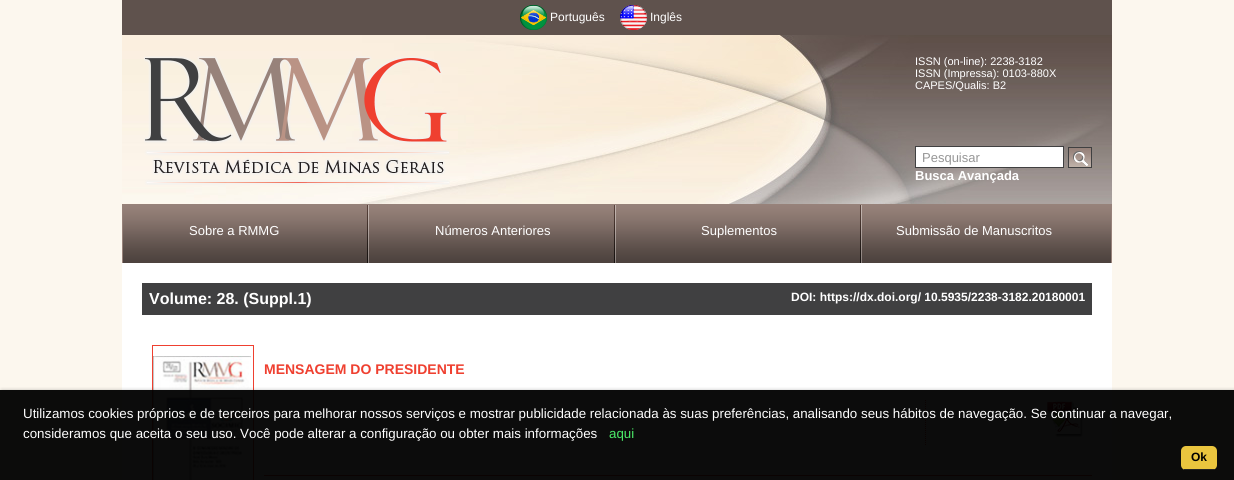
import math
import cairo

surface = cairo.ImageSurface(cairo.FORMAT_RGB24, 1234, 480)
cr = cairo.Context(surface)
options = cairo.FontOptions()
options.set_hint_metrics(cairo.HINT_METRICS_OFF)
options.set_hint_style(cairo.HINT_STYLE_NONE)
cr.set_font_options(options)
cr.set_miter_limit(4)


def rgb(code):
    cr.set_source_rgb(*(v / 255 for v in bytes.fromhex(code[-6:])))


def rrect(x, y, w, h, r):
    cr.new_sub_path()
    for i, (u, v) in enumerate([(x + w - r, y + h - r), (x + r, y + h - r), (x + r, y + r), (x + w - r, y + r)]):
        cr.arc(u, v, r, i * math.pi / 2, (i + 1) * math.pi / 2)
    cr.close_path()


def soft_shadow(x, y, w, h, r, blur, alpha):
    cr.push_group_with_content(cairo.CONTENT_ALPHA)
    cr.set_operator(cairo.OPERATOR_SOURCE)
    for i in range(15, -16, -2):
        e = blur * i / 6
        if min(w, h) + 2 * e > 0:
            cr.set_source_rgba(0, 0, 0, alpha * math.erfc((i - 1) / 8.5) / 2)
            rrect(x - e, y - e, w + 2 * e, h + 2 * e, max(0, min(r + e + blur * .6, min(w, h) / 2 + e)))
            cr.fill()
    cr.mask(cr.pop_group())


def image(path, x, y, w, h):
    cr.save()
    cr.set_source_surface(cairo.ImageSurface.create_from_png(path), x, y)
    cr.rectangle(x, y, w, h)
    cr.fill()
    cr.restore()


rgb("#fcf7ee")
cr.paint()
rgb("#5f524d")
cr.rectangle(122, 0, 990, 35)
cr.fill()
image("img/1.png", 520, 5, 27, 25)
image("img/2.png", 620, 5, 27, 25)
image("img/3.png", 122, 35, 990, 169)
image("img/4.png", 144, 56, 306, 129)
rgb("#ffffff")
cr.rectangle(915.5, 146.5, 148, 21)
cr.fill_preserve()
rgb("#404041")
cr.set_line_width(1)
cr.stroke()
image("img/5.png", 1069, 148, 22, 19)
cr.rectangle(1068.5, 147.5, 23, 20)
cr.stroke()
image("img/6.png", 123, 205, 988, 58)
cr.rectangle(122.5, 204.5, 989, 59)
rgb("#97827a")
cr.stroke()
image("img/7.png", 367, 205, 2, 58)
image("img/7.png", 614, 205, 2, 58)
image("img/7.png", 860, 205, 2, 58)
rgb("#ffffff")
cr.rectangle(122, 263, 990, 217)
cr.fill()
rgb("#404041")
cr.rectangle(142, 283, 950, 32)
cr.fill()
cr.rectangle(152.5, 345.5, 101, 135)
rgb("#ef4030")
cr.stroke()
image("img/8.png", 153, 356, 98, 124)
cr.rectangle(264, 475, 828, 1)
cr.fill()
cr.new_path()
cr.move_to(925.5, 400)
cr.line_to(925.5, 446)
cr.set_dash([1, 1])
cr.stroke()
image("img/9.png", 1047, 400, 36, 37)
cr.save()
cr.rectangle(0, 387, 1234, 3)
cr.clip()
rgb("#000000")
soft_shadow(2, 392, 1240, 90, 0, 2.5, 0.6)
cr.restore()
cr.set_source_rgba(0, 0, 0, 0.95)
cr.rectangle(0, 390, 1234, 90)
cr.fill()
rgb("#eac53e")
rrect(1181, 446, 36, 24, 5)
cr.fill()
rgb("#222222")
cr.rectangle(1184, 469, 31, 1)
cr.fill()
cr.select_font_face("Liberation Sans")
cr.set_font_size(12)
rgb("#ffffff")
cr.move_to(550, 21)
cr.show_text("Português")
cr.move_to(650, 21)
cr.show_text("Inglês")
cr.set_font_size(11)
for x, y, s in [
    (915, 65, "ISSN (on-line): 2238-3182"),
    (915, 77, "ISSN (Impressa): 0103-880X"),
    (915, 89, "CAPES/Qualis: B2"),
]:
    cr.move_to(x, y)
    cr.show_text(s)
cr.set_font_size(13)
rgb("#969696")
cr.move_to(922, 162)
cr.show_text("Pesquisar")
cr.select_font_face("Liberation Sans", cairo.FONT_SLANT_NORMAL, cairo.FONT_WEIGHT_BOLD)
rgb("#ffffff")
cr.move_to(915, 180)
cr.show_text("Busca Avançada")
cr.select_font_face("Liberation Sans")
for x, y, s in [
    (189, 235, "Sobre a RMMG"),
    (435, 235, "Números Anteriores"),
    (701, 235, "Suplementos"),
    (896, 235, "Submissão de Manuscritos"),
]:
    cr.move_to(x, y)
    cr.show_text(s)
cr.select_font_face("Liberation Sans", cairo.FONT_SLANT_NORMAL, cairo.FONT_WEIGHT_BOLD)
cr.set_font_size(16)
cr.move_to(149, 304)
cr.show_text("Volume: 28. (Suppl.1)")
cr.set_font_size(12)
cr.move_to(791, 301)
cr.show_text("DOI: https://dx.doi.org/ 10.5935/2238-3182.20180001")
cr.set_font_size(14)
rgb("#ef4030")
cr.move_to(264, 374)
cr.show_text("MENSAGEM DO PRESIDENTE")
cr.select_font_face("Liberation Sans")
cr.set_font_size(13.33)
rgb("#ffffff")
cr.move_to(23, 418)
cr.show_text("Utilizamos cookies próprios e de terceiros para melhorar nossos serviços e mostrar publicidade relacionada às suas preferências, analisando seus hábitos de navegação. Se continuar a navegar,")
cr.move_to(23, 438)
cr.show_text("consideramos que aceita o seu uso. Você pode alterar a configuração ou obter mais informações")
rgb("#4bec69")
cr.move_to(609, 438)
cr.show_text("aqui")
cr.select_font_face("Liberation Sans", cairo.FONT_SLANT_NORMAL, cairo.FONT_WEIGHT_BOLD)
cr.set_font_size(12)
rgb("#000000")
cr.move_to(1191, 461)
cr.show_text("Ok")
surface.write_to_png("page.png")
